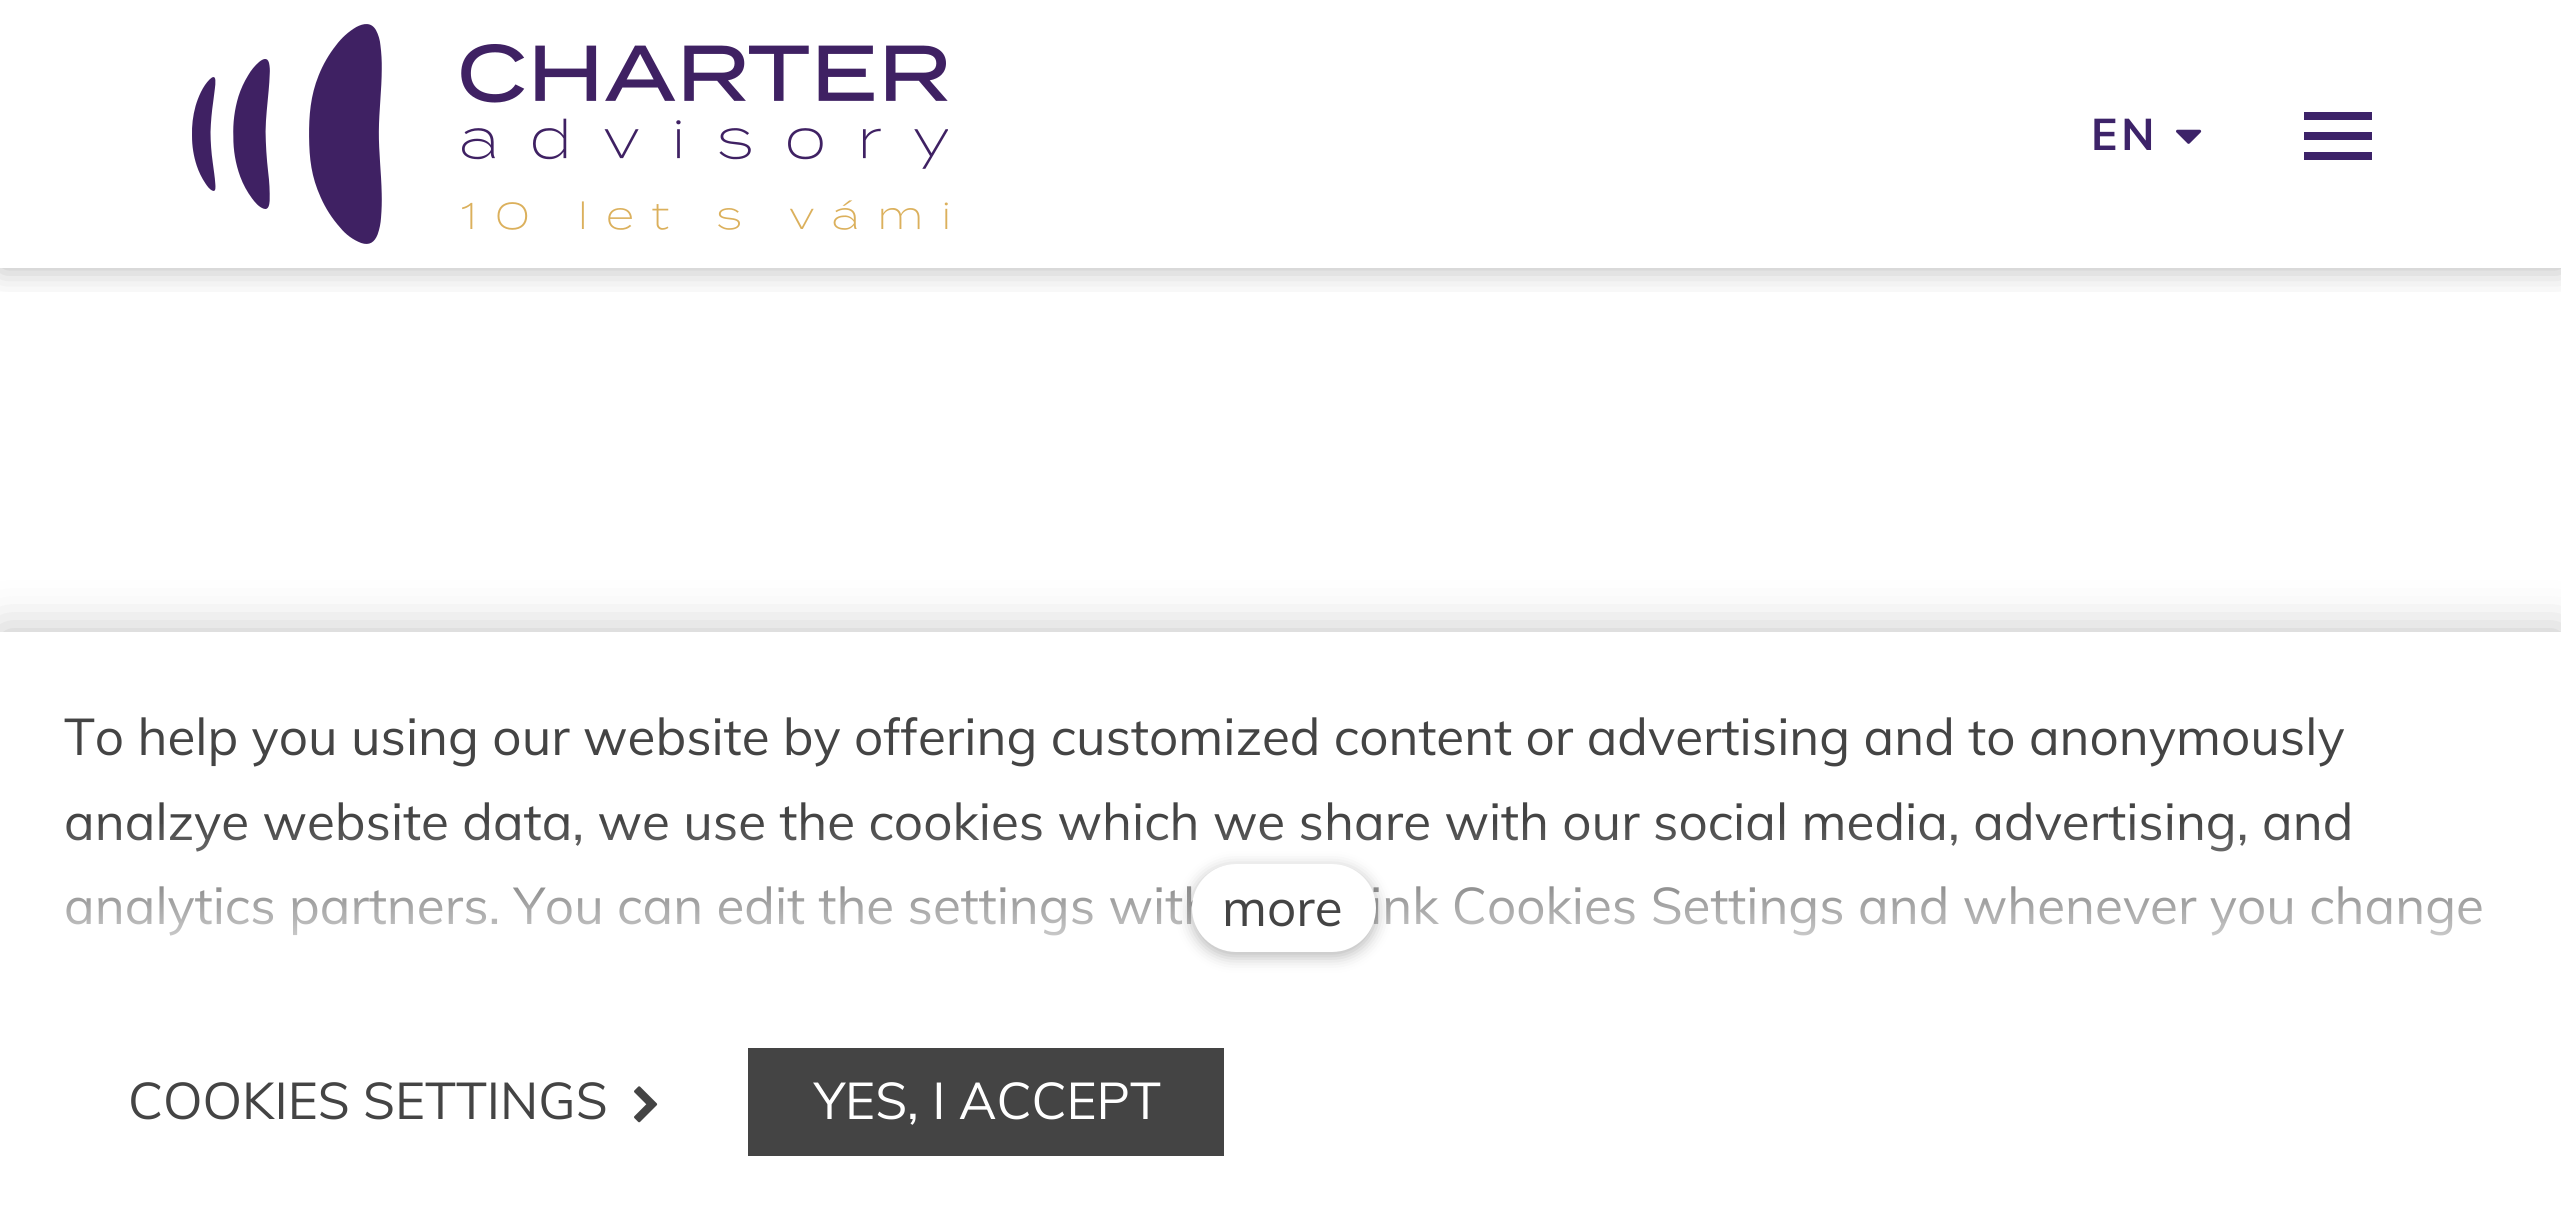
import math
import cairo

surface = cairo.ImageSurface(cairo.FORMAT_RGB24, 2561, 1219)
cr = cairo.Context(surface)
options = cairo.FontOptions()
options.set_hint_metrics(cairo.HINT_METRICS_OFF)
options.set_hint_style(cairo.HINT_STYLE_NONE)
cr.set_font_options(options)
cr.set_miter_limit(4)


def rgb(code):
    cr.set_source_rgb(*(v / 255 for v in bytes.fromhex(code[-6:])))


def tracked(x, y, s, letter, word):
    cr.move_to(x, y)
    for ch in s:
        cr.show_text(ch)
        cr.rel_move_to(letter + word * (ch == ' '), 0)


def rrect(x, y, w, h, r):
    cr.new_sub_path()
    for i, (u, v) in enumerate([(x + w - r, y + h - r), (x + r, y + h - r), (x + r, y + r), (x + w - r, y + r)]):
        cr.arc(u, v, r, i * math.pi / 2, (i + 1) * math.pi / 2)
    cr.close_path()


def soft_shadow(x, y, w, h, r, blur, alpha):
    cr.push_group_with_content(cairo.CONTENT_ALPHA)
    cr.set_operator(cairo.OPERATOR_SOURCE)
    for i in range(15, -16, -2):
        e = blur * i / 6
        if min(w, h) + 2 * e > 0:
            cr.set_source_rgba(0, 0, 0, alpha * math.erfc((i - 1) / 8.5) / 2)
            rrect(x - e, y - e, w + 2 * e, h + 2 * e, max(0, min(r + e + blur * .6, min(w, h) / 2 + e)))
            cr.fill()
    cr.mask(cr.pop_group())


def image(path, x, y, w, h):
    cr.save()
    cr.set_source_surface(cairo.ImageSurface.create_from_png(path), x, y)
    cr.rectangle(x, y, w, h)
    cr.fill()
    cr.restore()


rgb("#ffffff")
cr.paint()
cr.save()
cr.rectangle(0, 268, 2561, 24)
cr.clip()
rgb("#000000")
soft_shadow(0, 0, 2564, 268, 0, 16, 0.3)
cr.restore()
image("img/1.png", 192, 24, 756, 220)
image("img/2.png", 2176, 129, 26, 15)
for x, y, w, h, color in [
    (2304, 132, 68, 8, "#3d2369"),
    (2304, 112, 68, 8, "#3d2369"),
    (2304, 152, 68, 8, "#3d2369"),
]:
    rgb(color)
    cr.rectangle(x, y, w, h)
    cr.fill()
rgb("#000000")
soft_shadow(0, 632, 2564, 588, 0, 24, 0.25)
rgb("#ffffff")
cr.rectangle(0, 632, 2561, 587)
cr.fill()
image("img/3.png", 634, 1086, 24, 37)
rgb("#444444")
cr.rectangle(748, 1048, 476, 108)
cr.fill()
cr.select_font_face("Muli", cairo.FONT_SLANT_NORMAL, cairo.FONT_WEIGHT_BOLD)
cr.set_font_size(44)
rgb("#3d2369")
tracked(2091, 150, "EN", 4, 0)
cr.select_font_face("Muli")
cr.set_font_size(51.2)
rgb("#444444")
for x, y, s in [
    (64, 755, "To help you using our website by offering customized content or advertising and to anonymously"),
    (64, 840, "analzye website data, we use the cookies which we share with our social media, advertising, and"),
    (64, 924, "analytics partners. You can edit the settings with"),
    (1370, 924, "ink Cookies Settings and whenever you change"),
]:
    cr.move_to(x, y)
    cr.show_text(s)
gradient = cairo.LinearGradient(1282, 984, 1282, 820)
gradient.add_color_stop_rgba(0, 1, 1, 1, 1)
gradient.add_color_stop_rgba(1, 1, 1, 1, 0)
cr.set_source(gradient)
cr.rectangle(66, 824, 2416, 112)
cr.fill()
rgb("#000000")
soft_shadow(1192, 868, 184, 88, 44, 8, 0.3)
rgb("#ffffff")
rrect(1192, 864, 184, 88, 44)
cr.fill()
rgb("#444444")
cr.move_to(1222, 926)
cr.show_text("more")
cr.move_to(128, 1119)
cr.show_text("COOKIES SETTINGS")
rgb("#ffffff")
cr.move_to(814, 1119)
cr.show_text("YES, I ACCEPT")
surface.write_to_png("page.png")
